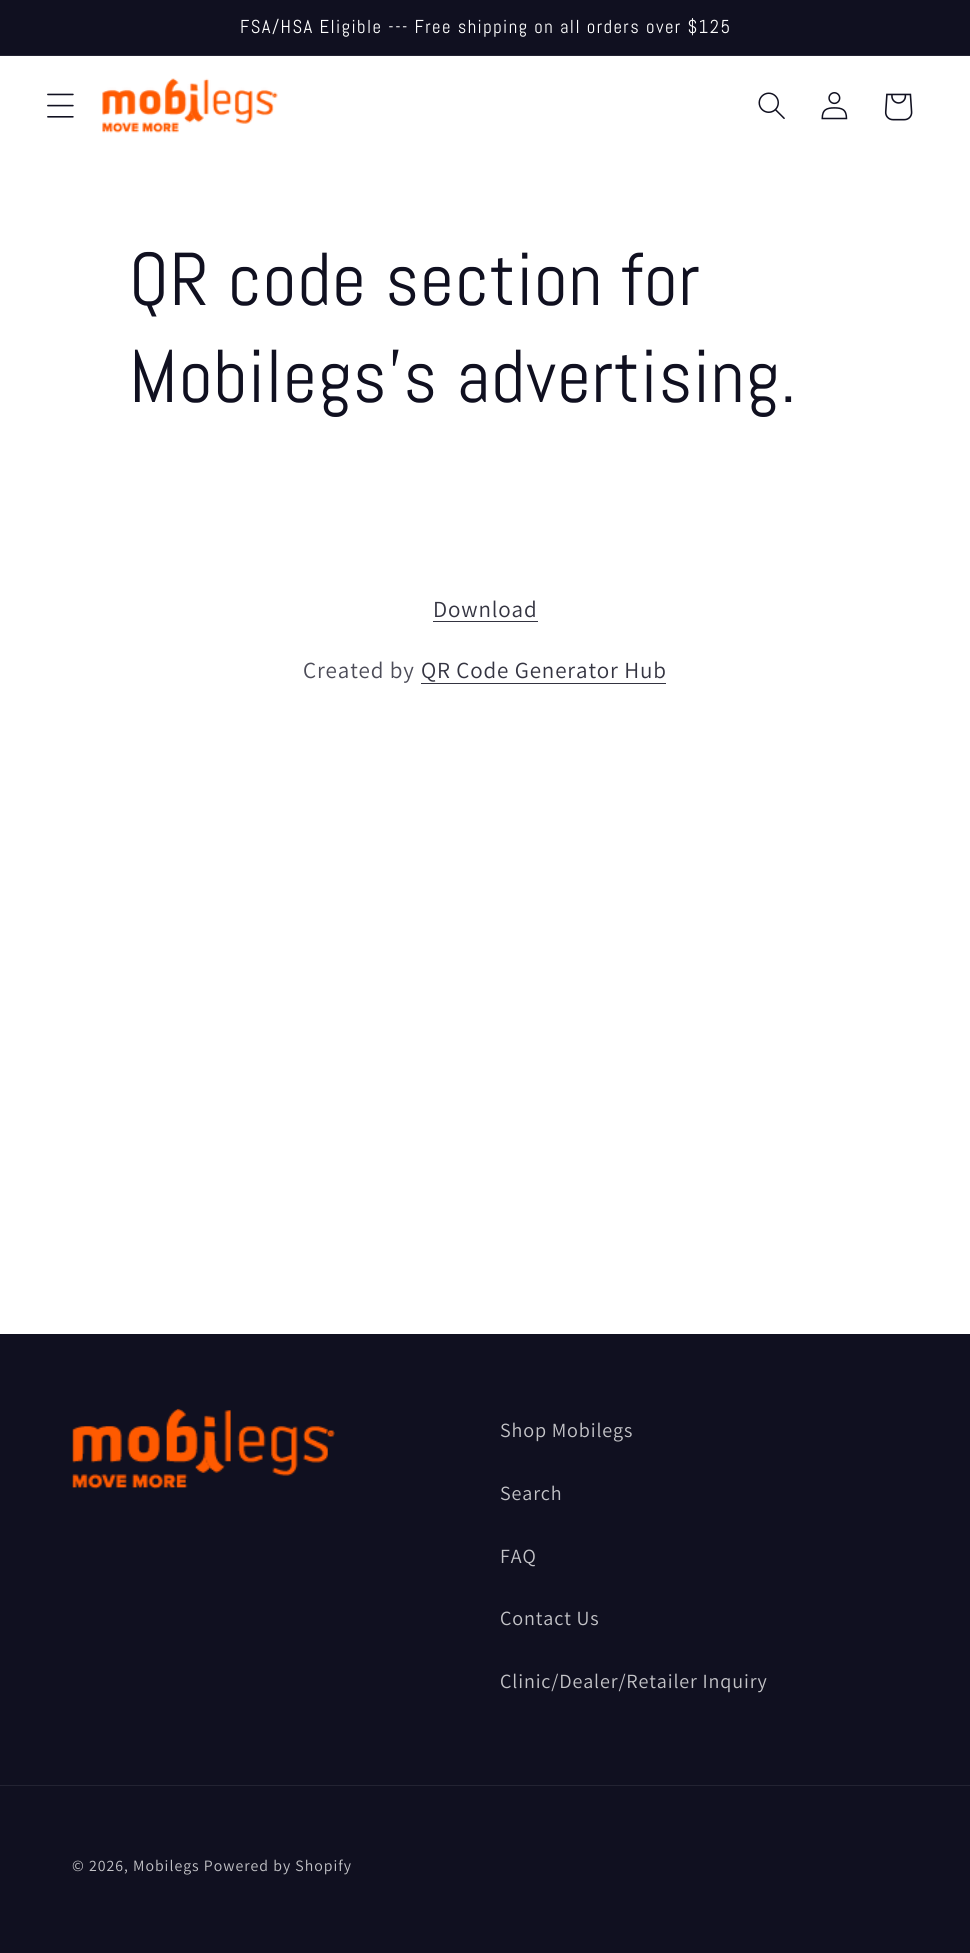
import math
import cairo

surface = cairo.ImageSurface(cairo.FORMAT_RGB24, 970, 1953)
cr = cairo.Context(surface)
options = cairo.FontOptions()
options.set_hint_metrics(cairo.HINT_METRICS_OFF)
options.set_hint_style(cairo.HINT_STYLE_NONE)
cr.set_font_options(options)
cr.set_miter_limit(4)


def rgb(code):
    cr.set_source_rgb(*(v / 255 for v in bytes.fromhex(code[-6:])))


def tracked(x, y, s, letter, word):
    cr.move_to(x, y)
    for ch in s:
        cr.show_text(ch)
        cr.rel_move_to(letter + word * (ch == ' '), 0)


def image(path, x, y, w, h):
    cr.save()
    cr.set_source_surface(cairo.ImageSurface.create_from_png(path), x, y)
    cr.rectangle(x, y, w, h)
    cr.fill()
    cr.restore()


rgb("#ffffff")
cr.paint()
rgb("#101020")
cr.rectangle(0, 0, 970, 55)
cr.fill()
rgb("#232332")
cr.rectangle(0, 55, 970, 1)
cr.fill()
image("img/1.png", 47, 93, 27, 25)
image("img/2.png", 102, 78, 176, 55)
image("img/3.png", 758, 92, 27, 27)
image("img/4.png", 821, 92, 27, 28)
image("img/5.png", 884, 93, 29, 28)
for x, y, w, h, color in [
    (433, 621, 105, 1, "#343441"),
    (421, 683, 245, 1, "#343441"),
    (0, 1334, 970, 619, "#101020"),
]:
    rgb(color)
    cr.rectangle(x, y, w, h)
    cr.fill()
image("img/6.png", 72, 1408, 263, 81)
rgb("#232332")
cr.rectangle(0, 1785, 970, 1)
cr.fill()
cr.select_font_face("Abel")
cr.set_font_size(18.7)
rgb("#ffffff")
tracked(240, 33, "FSA/HSA Eligible --- Free shipping on all orders over $125", 1.45, 0)
cr.set_font_size(74.75)
rgb("#101020")
tracked(129, 305, "QR code section for", 0.85, 0)
tracked(129, 402, "Mobilegs's advertising.", 0.85, 0)
cr.select_font_face("Assistant")
cr.set_font_size(23)
rgb("#343441")
tracked(433, 617, "Download", 0.85, 0)
rgb("#4c4c58")
tracked(303, 678, "Created by", 0.85, 0)
rgb("#343441")
tracked(421, 678, "QR Code Generator Hub", 0.85, 0)
cr.set_font_size(20.1)
rgb("#c3c3c7")
for x, y, s in [
    (500, 1437, "Shop Mobilegs"),
    (500, 1500, "Search"),
    (500, 1563, "FAQ"),
    (500, 1625, "Contact Us"),
    (500, 1688, "Clinic/Dealer/Retailer Inquiry"),
]:
    tracked(x, y, s, 0.85, 0)
cr.set_font_size(15.8)
tracked(72, 1871, "© 2026, Mobilegs Powered by Shopify", 1, 0)
surface.write_to_png("page.png")
